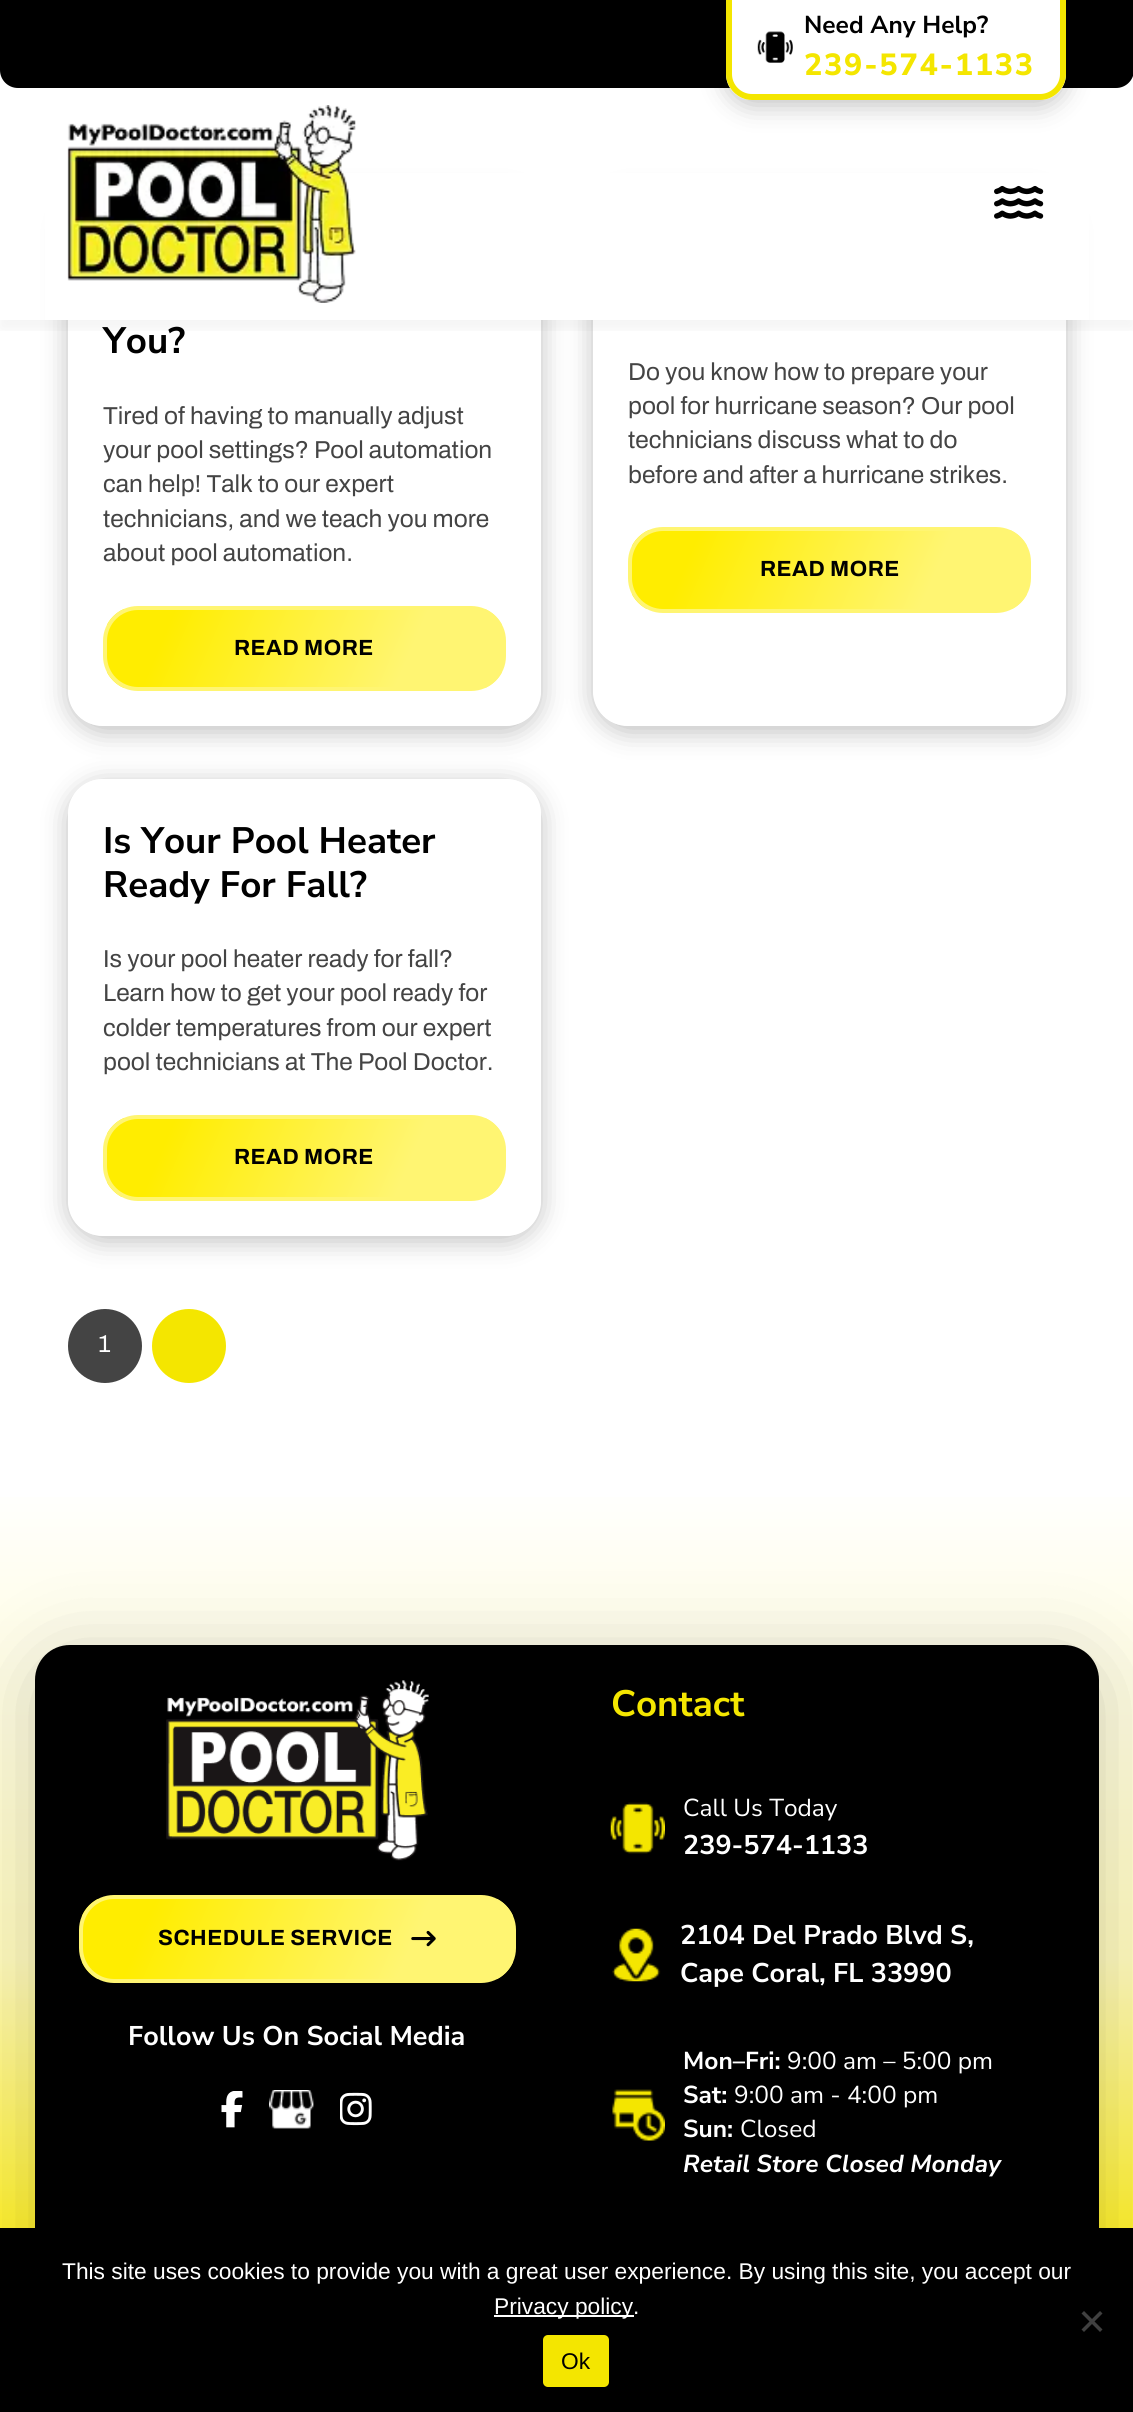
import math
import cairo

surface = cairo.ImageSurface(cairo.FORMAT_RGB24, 1133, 2412)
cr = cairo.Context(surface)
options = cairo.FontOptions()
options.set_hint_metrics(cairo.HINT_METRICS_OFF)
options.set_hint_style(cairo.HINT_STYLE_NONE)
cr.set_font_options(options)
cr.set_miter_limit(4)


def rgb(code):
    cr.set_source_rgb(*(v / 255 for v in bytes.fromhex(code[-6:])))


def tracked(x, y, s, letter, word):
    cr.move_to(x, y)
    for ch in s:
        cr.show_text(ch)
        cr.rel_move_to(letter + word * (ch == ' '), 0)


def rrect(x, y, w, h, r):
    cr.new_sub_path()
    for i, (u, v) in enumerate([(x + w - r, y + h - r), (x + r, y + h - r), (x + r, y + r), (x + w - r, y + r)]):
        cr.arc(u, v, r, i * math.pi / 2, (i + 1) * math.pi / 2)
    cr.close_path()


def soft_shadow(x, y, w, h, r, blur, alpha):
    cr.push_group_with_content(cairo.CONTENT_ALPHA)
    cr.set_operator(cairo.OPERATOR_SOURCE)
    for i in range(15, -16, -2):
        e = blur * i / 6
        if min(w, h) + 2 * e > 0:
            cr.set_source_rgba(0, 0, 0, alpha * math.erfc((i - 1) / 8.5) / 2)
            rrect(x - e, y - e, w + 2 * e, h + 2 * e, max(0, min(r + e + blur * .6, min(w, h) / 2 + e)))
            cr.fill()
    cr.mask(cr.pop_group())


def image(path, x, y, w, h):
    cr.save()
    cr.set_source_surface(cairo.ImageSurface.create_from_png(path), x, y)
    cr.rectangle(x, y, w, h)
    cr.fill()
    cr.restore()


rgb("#ffffff")
cr.paint()
cr.save()
cr.rectangle(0, 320, 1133, 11)
cr.clip()
rgb("#000000")
soft_shadow(0, 9, 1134, 320, 0, 9, 0.05)
cr.restore()
rgb("#000000")
cr.new_path()
cr.move_to(0, 0)
cr.line_to(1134, 0)
cr.line_to(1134, 70)
cr.curve_to(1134, 80, 1126, 88, 1116, 88)
cr.line_to(18, 88)
cr.curve_to(8, 88, 0, 80, 0, 70)
cr.close_path()
cr.fill()
rgb("#000000")
soft_shadow(726, 5, 340, 100, 26, 13, 0.25)
rgb("#ffffff")
cr.new_path()
cr.move_to(726, 0)
cr.line_to(1066, 0)
cr.line_to(1066, 74)
cr.curve_to(1066, 88.5, 1054.5, 100, 1040, 100)
cr.line_to(752, 100)
cr.curve_to(737.5, 100, 726, 88.5, 726, 74)
cr.close_path()
cr.fill()
rgb("#f4e600")
cr.set_fill_rule(cairo.FILL_RULE_EVEN_ODD)
cr.new_path()
cr.move_to(726, 0)
cr.line_to(1066, 0)
cr.line_to(1066, 74)
cr.curve_to(1066, 88, 1054, 100, 1040, 100)
cr.line_to(752, 100)
cr.curve_to(738, 100, 726, 88, 726, 74)
cr.close_path()
cr.move_to(732, 0)
cr.line_to(1060, 0)
cr.line_to(1060, 74)
cr.curve_to(1060, 85, 1051, 94, 1040, 94)
cr.line_to(752, 94)
cr.curve_to(741, 94, 732, 85, 732, 74)
cr.close_path()
cr.fill()
image("img/1.png", 757, 31, 36, 32)
cr.save()
cr.new_path()
cr.move_to(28, 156)
cr.line_to(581, 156)
cr.line_to(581, 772)
cr.line_to(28, 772)
cr.close_path()
cr.move_to(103, 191)
cr.line_to(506, 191)
cr.curve_to(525.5, 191, 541, 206.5, 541, 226)
cr.line_to(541, 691)
cr.curve_to(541, 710.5, 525.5, 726, 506, 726)
cr.line_to(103, 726)
cr.curve_to(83.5, 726, 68, 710.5, 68, 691)
cr.line_to(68, 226)
cr.curve_to(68, 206.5, 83.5, 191, 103, 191)
cr.close_path()
cr.clip()
rgb("#000000")
soft_shadow(68, 196, 473, 536, 35, 13, 0.25)
cr.restore()
cr.save()
cr.new_path()
cr.move_to(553, 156)
cr.line_to(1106, 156)
cr.line_to(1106, 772)
cr.line_to(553, 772)
cr.close_path()
cr.move_to(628, 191)
cr.line_to(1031, 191)
cr.curve_to(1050.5, 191, 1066, 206.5, 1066, 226)
cr.line_to(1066, 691)
cr.curve_to(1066, 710.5, 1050.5, 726, 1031, 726)
cr.line_to(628, 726)
cr.curve_to(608.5, 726, 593, 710.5, 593, 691)
cr.line_to(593, 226)
cr.curve_to(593, 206.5, 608.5, 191, 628, 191)
cr.close_path()
cr.clip()
rgb("#000000")
soft_shadow(593, 196, 473, 536, 35, 13, 0.25)
cr.restore()
rgb("#ffffff")
cr.rectangle(45, 173, 1044, 147)
cr.fill()
image("img/2.png", 67, 105, 289, 198)
image("img/3.png", 994, 185, 50, 34)
cr.save()
cr.set_fill_rule(cairo.FILL_RULE_WINDING)
rrect(103, 606, 403, 85, 35)
cr.clip()
gradient = cairo.LinearGradient(123, 571, 486, 726)
gradient.add_color_stop_rgba(0.16, 1, 0.929, 0, 1)
gradient.add_color_stop_rgba(0.75, 1, 0.961, 0.447, 1)
cr.set_source(gradient)
cr.rectangle(107, 609, 395, 79)
cr.fill()
cr.restore()
rrect(105, 608, 399, 81, 33)
rgb("#fff572")
cr.set_line_width(4)
cr.stroke()
cr.save()
cr.set_fill_rule(cairo.FILL_RULE_WINDING)
rrect(628, 527, 403, 86, 35)
cr.clip()
gradient = cairo.LinearGradient(648, 492, 1011, 647)
gradient.add_color_stop_rgba(0.16, 1, 0.929, 0, 1)
gradient.add_color_stop_rgba(0.75, 1, 0.961, 0.447, 1)
cr.set_source(gradient)
cr.rectangle(632, 530, 395, 79)
cr.fill()
cr.restore()
rrect(630, 529, 399, 82, 33)
cr.stroke()
cr.save()
cr.new_path()
cr.move_to(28, 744)
cr.line_to(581, 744)
cr.line_to(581, 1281)
cr.line_to(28, 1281)
cr.close_path()
cr.move_to(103, 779)
cr.line_to(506, 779)
cr.curve_to(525.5, 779, 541, 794.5, 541, 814)
cr.line_to(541, 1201)
cr.curve_to(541, 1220.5, 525.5, 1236, 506, 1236)
cr.line_to(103, 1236)
cr.curve_to(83.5, 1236, 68, 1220.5, 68, 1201)
cr.line_to(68, 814)
cr.curve_to(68, 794.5, 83.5, 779, 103, 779)
cr.close_path()
cr.clip()
rgb("#000000")
soft_shadow(68, 784, 473, 457, 35, 13, 0.25)
cr.restore()
cr.save()
cr.set_fill_rule(cairo.FILL_RULE_WINDING)
rrect(103, 1115, 403, 86, 35)
cr.clip()
gradient = cairo.LinearGradient(123, 1080, 486, 1235)
gradient.add_color_stop_rgba(0.16, 1, 0.929, 0, 1)
gradient.add_color_stop_rgba(0.75, 1, 0.961, 0.447, 1)
cr.set_source(gradient)
cr.rectangle(107, 1118, 395, 79)
cr.fill()
cr.restore()
rrect(105, 1117, 399, 82, 33)
cr.stroke()
rgb("#444444")
cr.arc(105, 1346, 37, 0, 2 * math.pi)
cr.fill()
rgb("#f4e600")
cr.arc(189, 1346, 37, 0, 2 * math.pi)
cr.fill()
gradient = cairo.LinearGradient(567, 2412, 567, 1470)
gradient.add_color_stop_rgba(0.1, 1, 0.929, 0, 1)
gradient.add_color_stop_rgba(0.48, 1, 0.98, 0.737, 1)
gradient.add_color_stop_rgba(0.99, 1, 1, 1, 1)
cr.set_source(gradient)
cr.rectangle(0, 1497, 1133, 731)
cr.fill()
rgb("#000000")
soft_shadow(35, 1657, 1064, 636, 35, 39.5, 0.2)
rgb("#000000")
cr.new_path()
cr.move_to(70, 1645)
cr.line_to(1064, 1645)
cr.curve_to(1083.5, 1645, 1099, 1660.5, 1099, 1680)
cr.line_to(1099, 2280)
cr.line_to(35, 2280)
cr.line_to(35, 1680)
cr.curve_to(35, 1660.5, 50.5, 1645, 70, 1645)
cr.close_path()
cr.fill()
image("img/4.png", 166, 1680, 263, 181)
cr.save()
cr.set_fill_rule(cairo.FILL_RULE_WINDING)
rrect(79, 1895, 437, 88, 35)
cr.clip()
gradient = cairo.LinearGradient(101, 1855, 494, 2023)
gradient.add_color_stop_rgba(0.16, 1, 0.929, 0, 1)
gradient.add_color_stop_rgba(0.75, 1, 0.961, 0.447, 1)
cr.set_source(gradient)
cr.rectangle(82, 1899, 431, 80)
cr.fill()
cr.restore()
rrect(81, 1897, 433, 84, 33)
rgb("#fff572")
cr.stroke()
image("img/5.png", 411, 1930, 25, 17)
image("img/6.png", 221, 2091, 22, 37)
image("img/7.png", 269, 2090, 45, 39)
image("img/8.png", 340, 2092, 32, 34)
image("img/9.png", 610, 1802, 55, 52)
image("img/10.png", 612, 1928, 49, 54)
image("img/11.png", 612, 2089, 53, 52)
rgb("#000000")
cr.rectangle(0, 2228, 1133, 184)
cr.fill()
rgb("#ffffff")
cr.rectangle(494, 2315, 140, 2)
cr.fill()
rgb("#404040")
cr.set_fill_rule(cairo.FILL_RULE_WINDING)
cr.new_path()
cr.move_to(1100, 2311)
cr.line_to(1102.5, 2313.5)
cr.line_to(1084, 2332)
cr.line_to(1081.5, 2329.5)
cr.close_path()
cr.fill()
cr.new_path()
cr.move_to(1081.5, 2313.5)
cr.line_to(1084, 2311)
cr.line_to(1102.5, 2329.5)
cr.line_to(1100, 2332)
cr.close_path()
cr.fill()
rgb("#f4e600")
rrect(543, 2335, 66, 52, 5)
cr.fill()
cr.select_font_face("Nunito Sans", cairo.FONT_SLANT_NORMAL, cairo.FONT_WEIGHT_BOLD)
cr.set_font_size(24.5)
rgb("#000000")
cr.move_to(804, 33)
cr.show_text("Need Any Help?")
cr.select_font_face("Nunito Sans ExtraBold")
cr.set_font_size(30.5)
rgb("#f4e600")
tracked(804, 75, "239-574-1133", 1.75, 0)
cr.select_font_face("Nunito Sans", cairo.FONT_SLANT_NORMAL, cairo.FONT_WEIGHT_BOLD)
cr.set_font_size(36.75)
rgb("#000000")
cr.move_to(103, 353)
cr.show_text("You?")
cr.select_font_face("Archivo")
cr.set_font_size(24.5)
rgb("#444444")
for x, y, s in [
    (103, 424, "Tired of having to manually adjust"),
    (103, 458, "your pool settings? Pool automation"),
    (103, 492, "can help! Talk to our expert"),
    (103, 527, "technicians, and we teach you more"),
    (103, 561, "about pool automation."),
]:
    cr.move_to(x, y)
    cr.show_text(s)
cr.select_font_face("Archivo", cairo.FONT_SLANT_NORMAL, cairo.FONT_WEIGHT_BOLD)
cr.set_font_size(22)
rgb("#000000")
tracked(234, 655, "READ MORE", 0.5, 0)
cr.select_font_face("Archivo")
cr.set_font_size(24.5)
rgb("#444444")
for x, y, s in [
    (628, 380, "Do you know how to prepare your"),
    (628, 414, "pool for hurricane season? Our pool"),
    (628, 448, "technicians discuss what to do"),
    (628, 483, "before and after a hurricane strikes."),
]:
    cr.move_to(x, y)
    cr.show_text(s)
cr.select_font_face("Archivo", cairo.FONT_SLANT_NORMAL, cairo.FONT_WEIGHT_BOLD)
cr.set_font_size(22)
rgb("#000000")
tracked(760, 576, "READ MORE", 0.5, 0)
cr.select_font_face("Nunito Sans", cairo.FONT_SLANT_NORMAL, cairo.FONT_WEIGHT_BOLD)
cr.set_font_size(36.75)
cr.move_to(103, 853)
cr.show_text("Is Your Pool Heater")
cr.move_to(103, 897)
cr.show_text("Ready For Fall?")
cr.select_font_face("Archivo")
cr.set_font_size(24.5)
rgb("#444444")
for x, y, s in [
    (103, 967, "Is your pool heater ready for fall?"),
    (103, 1001, "Learn how to get your pool ready for"),
    (103, 1036, "colder temperatures from our expert"),
    (103, 1070, "pool technicians at The Pool Doctor."),
]:
    cr.move_to(x, y)
    cr.show_text(s)
cr.select_font_face("Archivo", cairo.FONT_SLANT_NORMAL, cairo.FONT_WEIGHT_BOLD)
cr.set_font_size(22)
rgb("#000000")
tracked(234, 1164, "READ MORE", 0.5, 0)
cr.select_font_face("Archivo")
cr.set_font_size(24.5)
rgb("#ffffff")
cr.move_to(98, 1352)
cr.show_text("1")
cr.select_font_face("Archivo", cairo.FONT_SLANT_NORMAL, cairo.FONT_WEIGHT_BOLD)
cr.set_font_size(22)
rgb("#000000")
tracked(158, 1945, "SCHEDULE SERVICE", 0.5, 0)
cr.select_font_face("Nunito Sans", cairo.FONT_SLANT_NORMAL, cairo.FONT_WEIGHT_BOLD)
cr.set_font_size(27)
rgb("#ffffff")
cr.move_to(128, 2045)
cr.show_text("Follow Us On Social Media")
cr.set_font_size(36.75)
rgb("#f4e600")
cr.move_to(611, 1716)
cr.show_text("Contact")
cr.select_font_face("Nunito Sans")
cr.set_font_size(24.5)
rgb("#ffffff")
cr.move_to(683, 1816)
cr.show_text("Call Us Today")
cr.select_font_face("Nunito Sans", cairo.FONT_SLANT_NORMAL, cairo.FONT_WEIGHT_BOLD)
cr.set_font_size(27)
for x, y, s in [
    (683, 1854, "239-574-1133"),
    (680, 1944, "2104 Del Prado Blvd S,"),
    (680, 1982, "Cape Coral, FL 33990"),
]:
    cr.move_to(x, y)
    cr.show_text(s)
cr.set_font_size(24.5)
cr.move_to(683, 2069)
cr.show_text("Mon–Fri:")
cr.select_font_face("Nunito Sans")
cr.move_to(787, 2069)
cr.show_text("9:00 am – 5:00 pm")
cr.select_font_face("Nunito Sans", cairo.FONT_SLANT_NORMAL, cairo.FONT_WEIGHT_BOLD)
cr.move_to(683, 2103)
cr.show_text("Sat:")
cr.select_font_face("Nunito Sans")
cr.move_to(734, 2103)
cr.show_text("9:00 am - 4:00 pm")
cr.select_font_face("Nunito Sans", cairo.FONT_SLANT_NORMAL, cairo.FONT_WEIGHT_BOLD)
cr.move_to(683, 2137)
cr.show_text("Sun:")
cr.select_font_face("Nunito Sans")
cr.move_to(740, 2137)
cr.show_text("Closed")
cr.select_font_face("Nunito Sans", cairo.FONT_SLANT_ITALIC, cairo.FONT_WEIGHT_BOLD)
cr.move_to(683, 2172)
cr.show_text("Retail Store Closed Monday")
cr.select_font_face("Liberation Sans")
cr.set_font_size(22.75)
cr.move_to(62, 2279)
cr.show_text("This site uses cookies to provide you with a great user experience. By using this site, you accept our")
cr.move_to(494, 2314)
cr.show_text("Privacy policy.")
rgb("#000000")
cr.move_to(561, 2369)
cr.show_text("Ok")
surface.write_to_png("page.png")
